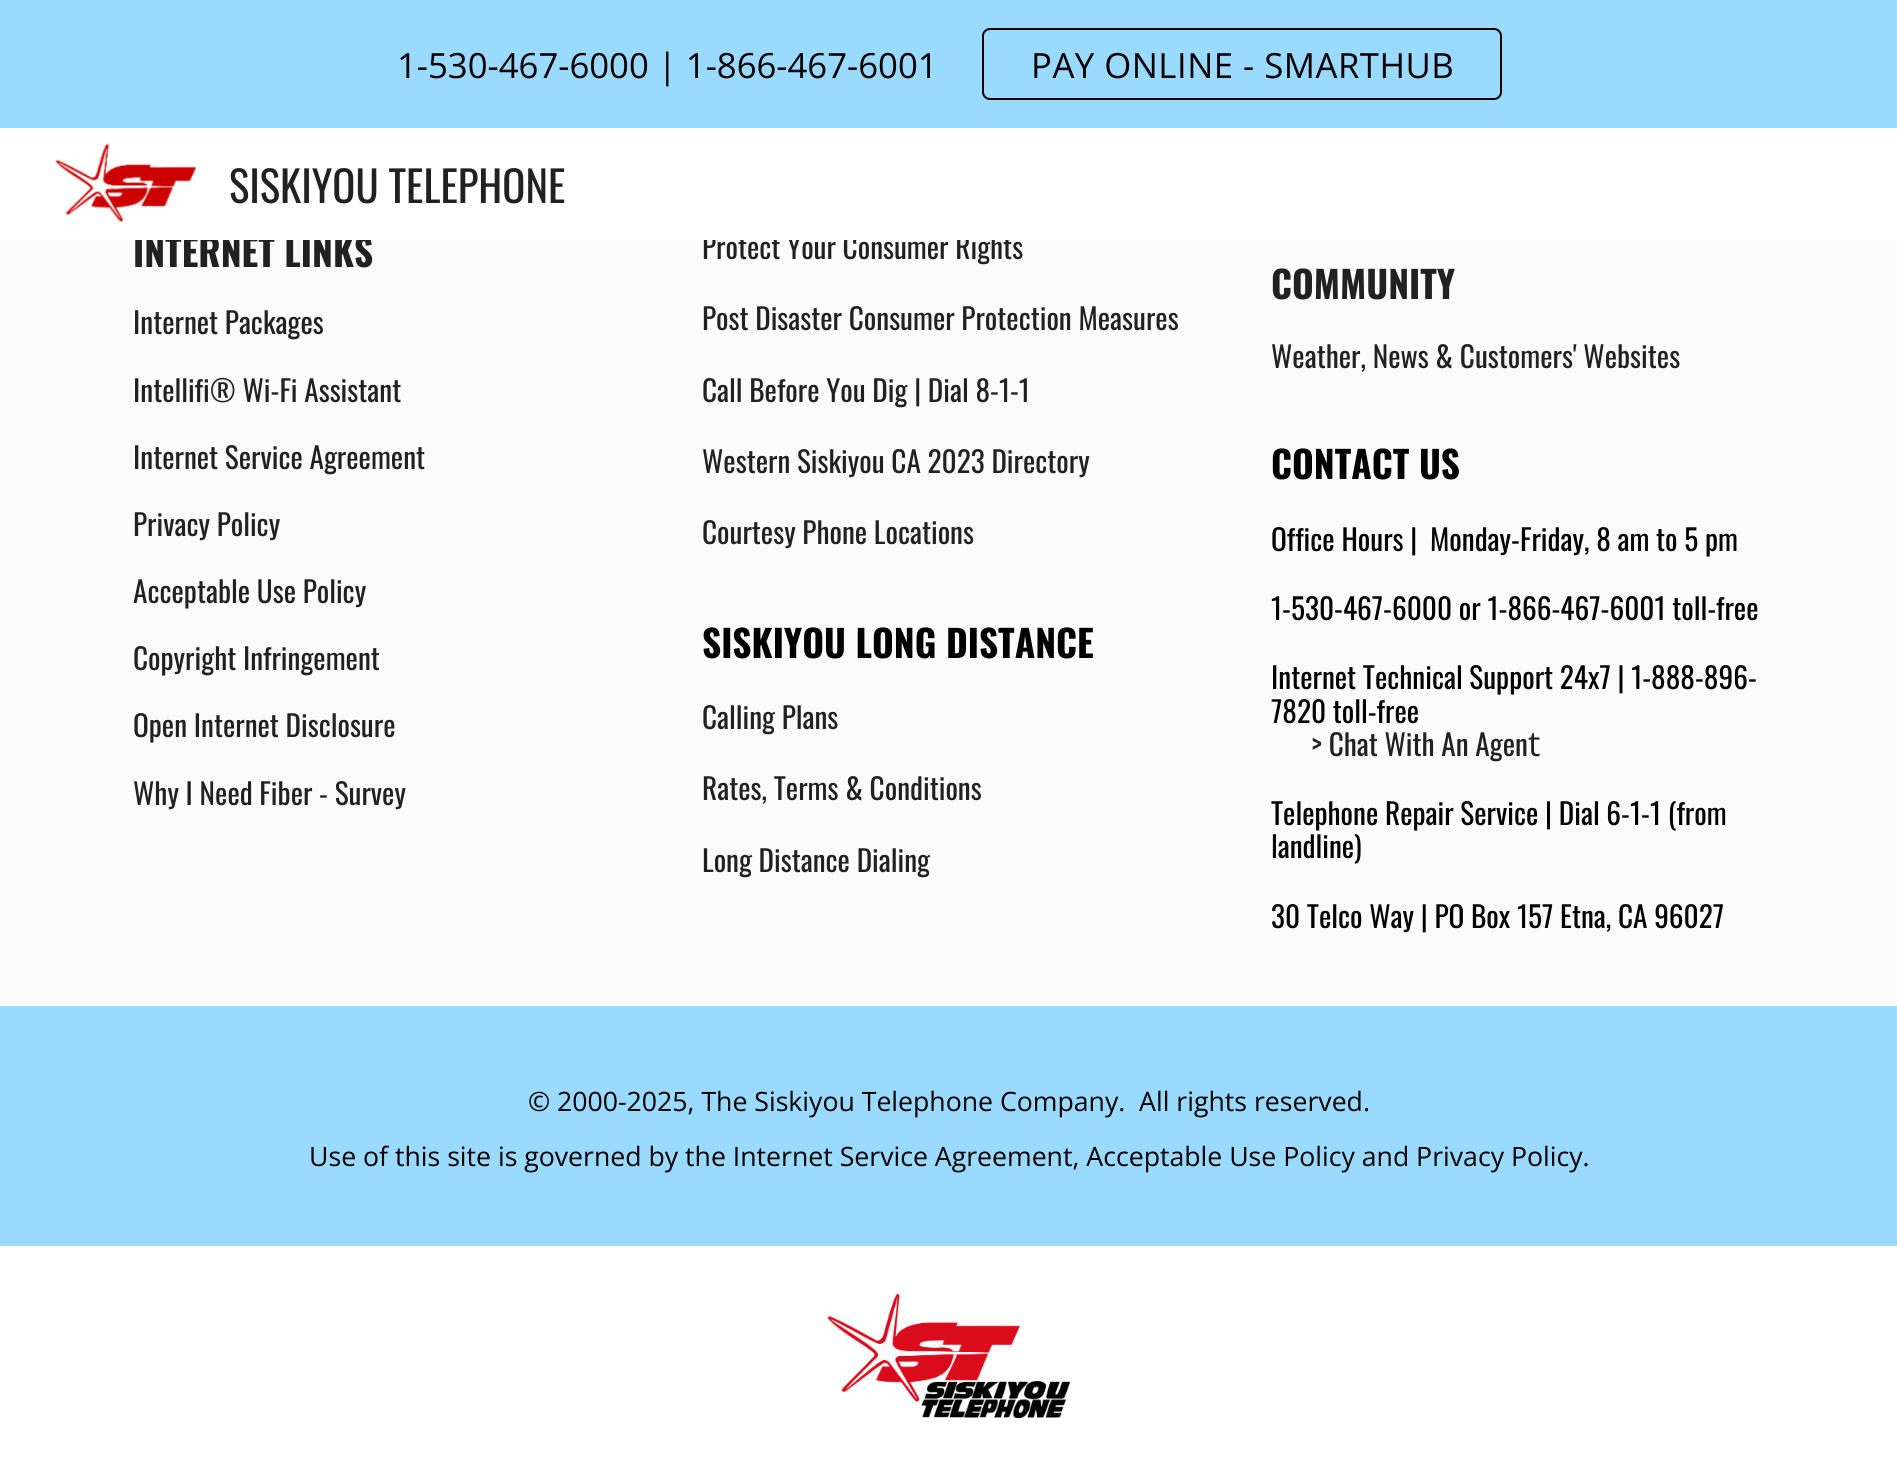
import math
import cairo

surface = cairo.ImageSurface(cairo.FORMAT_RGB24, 1897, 1466)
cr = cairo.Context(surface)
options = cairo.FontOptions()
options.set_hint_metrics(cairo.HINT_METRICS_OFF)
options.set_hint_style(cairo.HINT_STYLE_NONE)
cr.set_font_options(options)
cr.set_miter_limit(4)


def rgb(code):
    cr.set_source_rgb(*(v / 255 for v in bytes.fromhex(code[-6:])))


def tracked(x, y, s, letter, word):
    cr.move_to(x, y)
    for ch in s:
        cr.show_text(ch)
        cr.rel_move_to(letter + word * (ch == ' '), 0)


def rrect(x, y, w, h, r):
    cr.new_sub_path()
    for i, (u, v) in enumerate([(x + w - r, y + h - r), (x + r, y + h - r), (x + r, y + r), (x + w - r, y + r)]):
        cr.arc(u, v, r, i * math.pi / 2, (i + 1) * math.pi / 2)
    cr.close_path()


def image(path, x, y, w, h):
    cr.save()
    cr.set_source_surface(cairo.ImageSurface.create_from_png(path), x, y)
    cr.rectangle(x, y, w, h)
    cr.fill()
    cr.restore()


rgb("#ffffff")
cr.paint()
rgb("#9adafe")
cr.rectangle(0, 0, 1897, 128)
cr.fill()
rrect(983, 29, 518, 70, 7)
rgb("#000000")
cr.stroke()
image("img/1.png", 55, 143, 142, 79)
rgb("#fbfbfb")
cr.rectangle(0, 240, 1897, 766)
cr.fill()
rgb("#9adafe")
cr.rectangle(0, 1006, 1897, 240)
cr.fill()
image("img/2.png", 828, 1294, 242, 124)
cr.select_font_face("Open Sans")
cr.set_font_size(34.7)
rgb("#000000")
cr.move_to(397, 78)
cr.show_text("1-530-467-6000 | 1-866-467-6001")
tracked(1031, 78, "PAY ONLINE - SMARTHUB", 0.5, 0)
cr.select_font_face("Oswald")
cr.set_font_size(42.75)
rgb("#212121")
cr.move_to(229, 203)
cr.show_text("SISKIYOU TELEPHONE")
cr.select_font_face("Oswald", cairo.FONT_SLANT_NORMAL, cairo.FONT_WEIGHT_BOLD)
cr.set_font_size(37.25)
cr.move_to(133, 267)
cr.show_text("INTERNET LINKS")
cr.select_font_face("Oswald")
cr.set_font_size(29.3)
for x, y, s in [
    (133, 334, "Internet Packages"),
    (133, 402, "Intellifi® Wi-Fi Assistant"),
    (133, 469, "Internet Service Agreement"),
    (133, 536, "Privacy Policy"),
    (133, 603, "Acceptable Use Policy"),
    (133, 670, "Copyright Infringement"),
    (133, 737, "Open Internet Disclosure"),
    (133, 805, "Why I Need Fiber - Survey"),
    (702, 259, "Protect Your Consumer Rights"),
]:
    cr.move_to(x, y)
    cr.show_text(s)
rgb("#ffffff")
cr.rectangle(135, 235, 874, 5)
cr.fill()
rgb("#212121")
for x, y, s in [
    (702, 330, "Post Disaster Consumer Protection Measures"),
    (702, 402, "Call Before You Dig | Dial 8-1-1"),
    (702, 473, "Western Siskiyou CA 2023 Directory"),
    (702, 544, "Courtesy Phone Locations"),
]:
    cr.move_to(x, y)
    cr.show_text(s)
cr.select_font_face("Oswald", cairo.FONT_SLANT_NORMAL, cairo.FONT_WEIGHT_BOLD)
cr.set_font_size(37.25)
rgb("#000000")
cr.move_to(702, 658)
cr.show_text("SISKIYOU LONG DISTANCE")
cr.select_font_face("Oswald")
cr.set_font_size(29.3)
rgb("#212121")
for x, y, s in [
    (702, 729, "Calling Plans"),
    (702, 800, "Rates, Terms & Conditions"),
    (702, 872, "Long Distance Dialing"),
]:
    cr.move_to(x, y)
    cr.show_text(s)
cr.select_font_face("Oswald", cairo.FONT_SLANT_NORMAL, cairo.FONT_WEIGHT_BOLD)
cr.set_font_size(37.25)
cr.move_to(1271, 299)
cr.show_text("COMMUNITY")
cr.select_font_face("Oswald")
cr.set_font_size(29.3)
cr.move_to(1271, 368)
cr.show_text("Weather, News & Customers' Websites")
cr.select_font_face("Oswald", cairo.FONT_SLANT_NORMAL, cairo.FONT_WEIGHT_BOLD)
cr.set_font_size(37.25)
rgb("#000000")
cr.move_to(1271, 479)
cr.show_text("CONTACT US")
cr.select_font_face("Oswald")
cr.set_font_size(29.3)
for x, y, s in [
    (1271, 551, "Office Hours |"),
    (1430, 551, "Monday-Friday, 8 am to 5 pm"),
    (1271, 620, "1-530-467-6000 or 1-866-467-6001 toll-free"),
    (1271, 689, "Internet Technical Support 24x7 | 1-888-896-"),
    (1271, 723, "7820 toll-free"),
]:
    cr.move_to(x, y)
    cr.show_text(s)
rgb("#212121")
cr.move_to(1311, 756)
cr.show_text("> Chat With An Agen")
cr.select_font_face("Open Sans")
cr.set_font_size(34.7)
cr.move_to(1528, 756)
cr.show_text("t")
cr.select_font_face("Oswald")
cr.set_font_size(29.3)
rgb("#000000")
for x, y, s in [
    (1271, 825, "Telephone Repair Service | Dial 6-1-1 (from"),
    (1271, 858, "landline)"),
    (1271, 928, "30 Telco Way | PO Box 157 Etna, CA 96027"),
]:
    cr.move_to(x, y)
    cr.show_text(s)
cr.select_font_face("Open Sans")
cr.set_font_size(26.65)
cr.move_to(528, 1111)
cr.show_text("© 2000-2025, The Siskiyou Telephone Company.  All rights reserved.")
cr.move_to(309, 1166)
cr.show_text("Use of this site is governed by the Internet Service Agreement, Acceptable Use Policy and Privacy Policy.")
surface.write_to_png("page.png")
